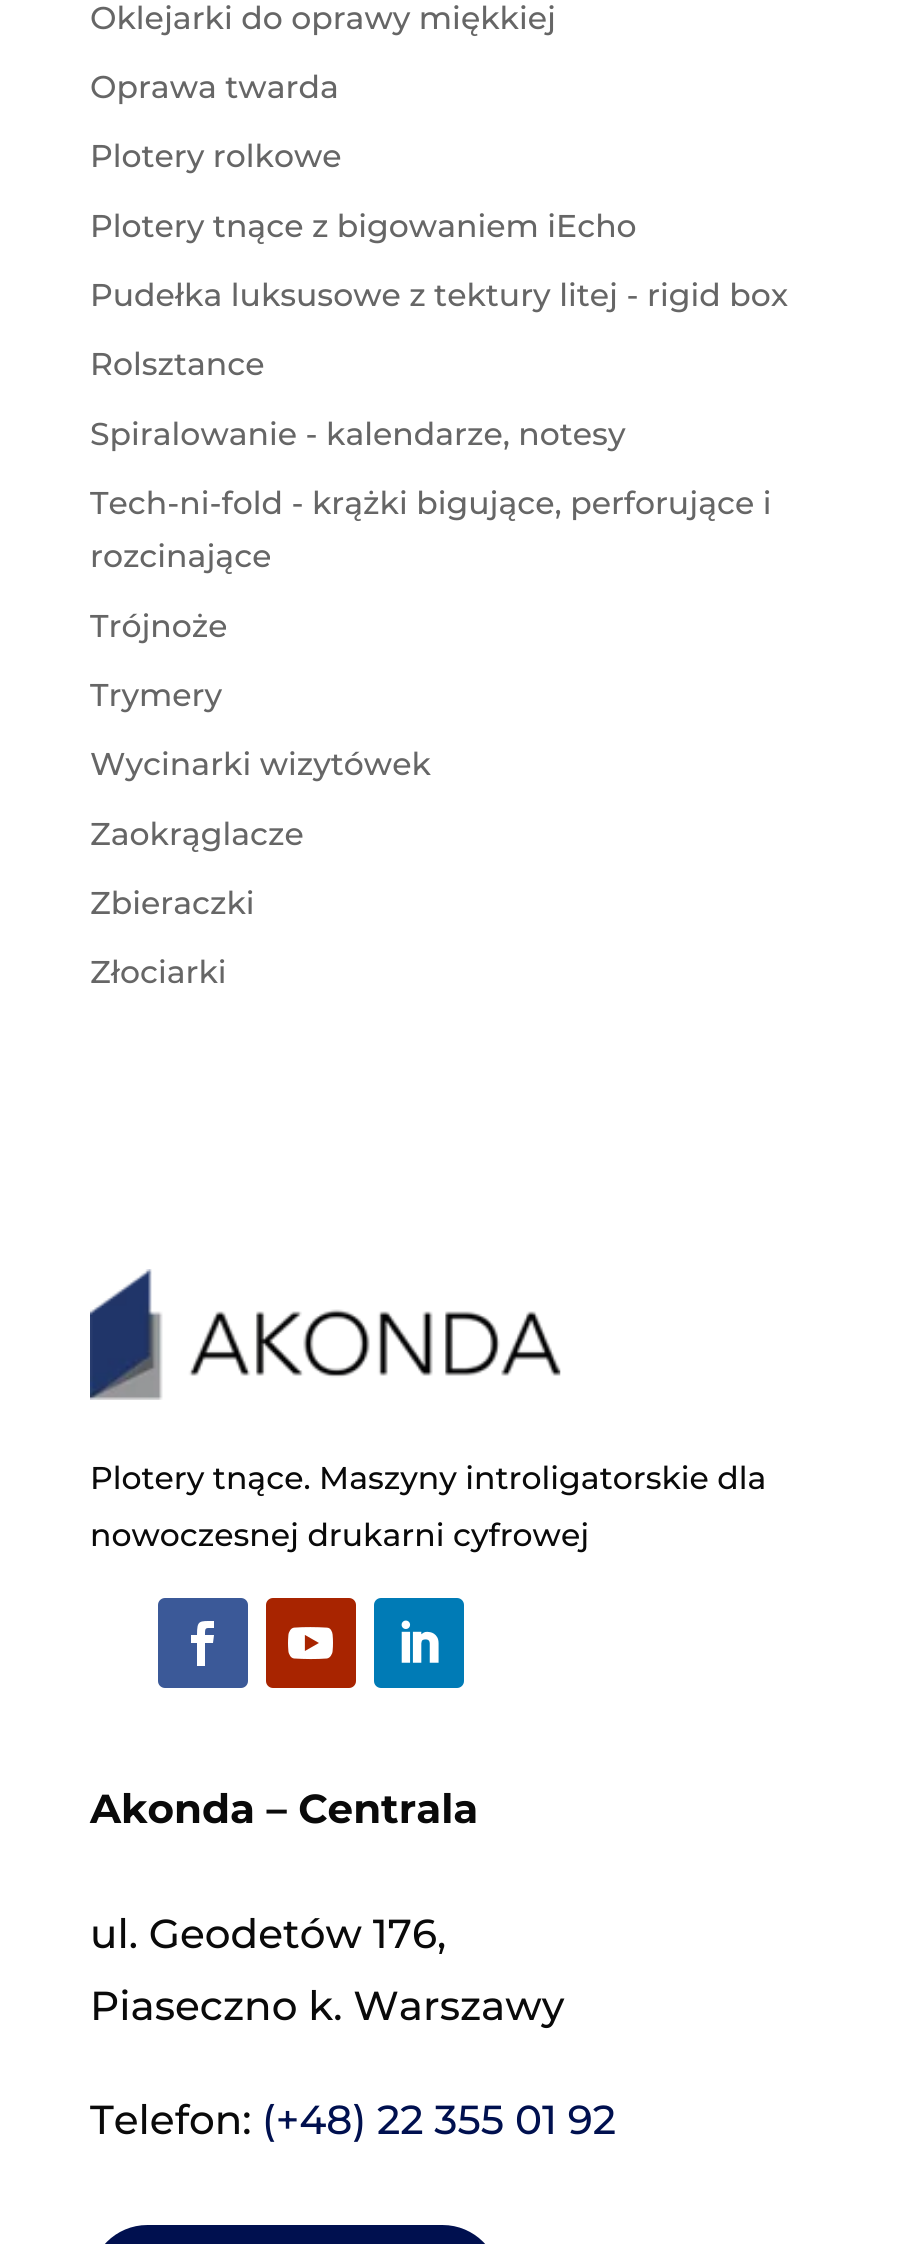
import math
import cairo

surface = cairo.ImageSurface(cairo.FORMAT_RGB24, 899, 2244)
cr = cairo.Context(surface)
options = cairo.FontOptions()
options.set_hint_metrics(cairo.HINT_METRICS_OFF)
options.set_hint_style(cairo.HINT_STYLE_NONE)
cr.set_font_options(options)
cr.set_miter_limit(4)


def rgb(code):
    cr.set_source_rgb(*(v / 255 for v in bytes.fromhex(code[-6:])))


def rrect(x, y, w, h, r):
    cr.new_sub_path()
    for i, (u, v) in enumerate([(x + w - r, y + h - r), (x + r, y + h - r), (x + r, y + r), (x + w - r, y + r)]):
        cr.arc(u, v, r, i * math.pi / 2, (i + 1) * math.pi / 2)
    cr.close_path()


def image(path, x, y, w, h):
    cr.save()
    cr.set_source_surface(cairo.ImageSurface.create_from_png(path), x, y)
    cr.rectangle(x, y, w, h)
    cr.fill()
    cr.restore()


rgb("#ffffff")
cr.paint()
image("img/1.png", 90, 1269, 471, 131)
rgb("#3b5998")
rrect(158, 1598, 90, 90, 7)
cr.fill()
rgb("#ffffff")
cr.new_path()
cr.move_to(197, 1666)
cr.line_to(205, 1666)
cr.line_to(205, 1643)
cr.line_to(213, 1643)
cr.line_to(214, 1635)
cr.line_to(205, 1635)
cr.curve_to(205, 1627, 205, 1628, 214, 1628)
cr.line_to(214, 1621)
cr.curve_to(199, 1621, 197, 1620, 197, 1635)
cr.line_to(191, 1635)
cr.line_to(191, 1643)
cr.line_to(197, 1643)
cr.close_path()
cr.fill()
rgb("#a82400")
rrect(266, 1598, 90, 90, 7)
cr.fill()
image("img/2.png", 288, 1627, 45, 33)
rgb("#007bb6")
rrect(374, 1598, 90, 90, 7)
cr.fill()
image("img/3.png", 401, 1620, 38, 43)
rgb("#00104f")
rrect(90, 2225, 410, 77, 57.5)
cr.fill()
cr.select_font_face("Montserrat Medium")
cr.set_font_size(31.5)
rgb("#666666")
for x, y, s in [
    (90, 29, "Oklejarki do oprawy miękkiej"),
    (90, 98, "Oprawa twarda"),
    (90, 167, "Plotery rolkowe"),
    (90, 237, "Plotery tnące z bigowaniem iEcho"),
    (90, 306, "Pudełka luksusowe z tektury litej - rigid box"),
    (90, 375, "Rolsztance"),
    (90, 445, "Spiralowanie - kalendarze, notesy"),
    (90, 514, "Tech-ni-fold - krążki bigujące, perforujące i"),
    (90, 567, "rozcinające"),
    (90, 637, "Trójnoże"),
    (90, 706, "Trymery"),
    (90, 775, "Wycinarki wizytówek"),
    (90, 845, "Zaokrąglacze"),
    (90, 914, "Zbieraczki"),
    (90, 983, "Złociarki"),
]:
    cr.move_to(x, y)
    cr.show_text(s)
rgb("#0a0a0a")
cr.move_to(90, 1489)
cr.show_text("Plotery tnące. Maszyny introligatorskie dla")
cr.move_to(90, 1546)
cr.show_text("nowoczesnej drukarni cyfrowej")
cr.select_font_face("Montserrat", cairo.FONT_SLANT_NORMAL, cairo.FONT_WEIGHT_BOLD)
cr.set_font_size(40.5)
cr.move_to(90, 1823)
cr.show_text("Akonda – Centrala")
cr.select_font_face("Montserrat Medium")
for x, y, s in [
    (90, 1948, "ul. Geodetów 176,"),
    (90, 2020, "Piaseczno k. Warszawy"),
    (90, 2134, "Telefon:"),
]:
    cr.move_to(x, y)
    cr.show_text(s)
rgb("#00104f")
cr.move_to(262, 2134)
cr.show_text("(+48) 22 355 01 92")
surface.write_to_png("page.png")
